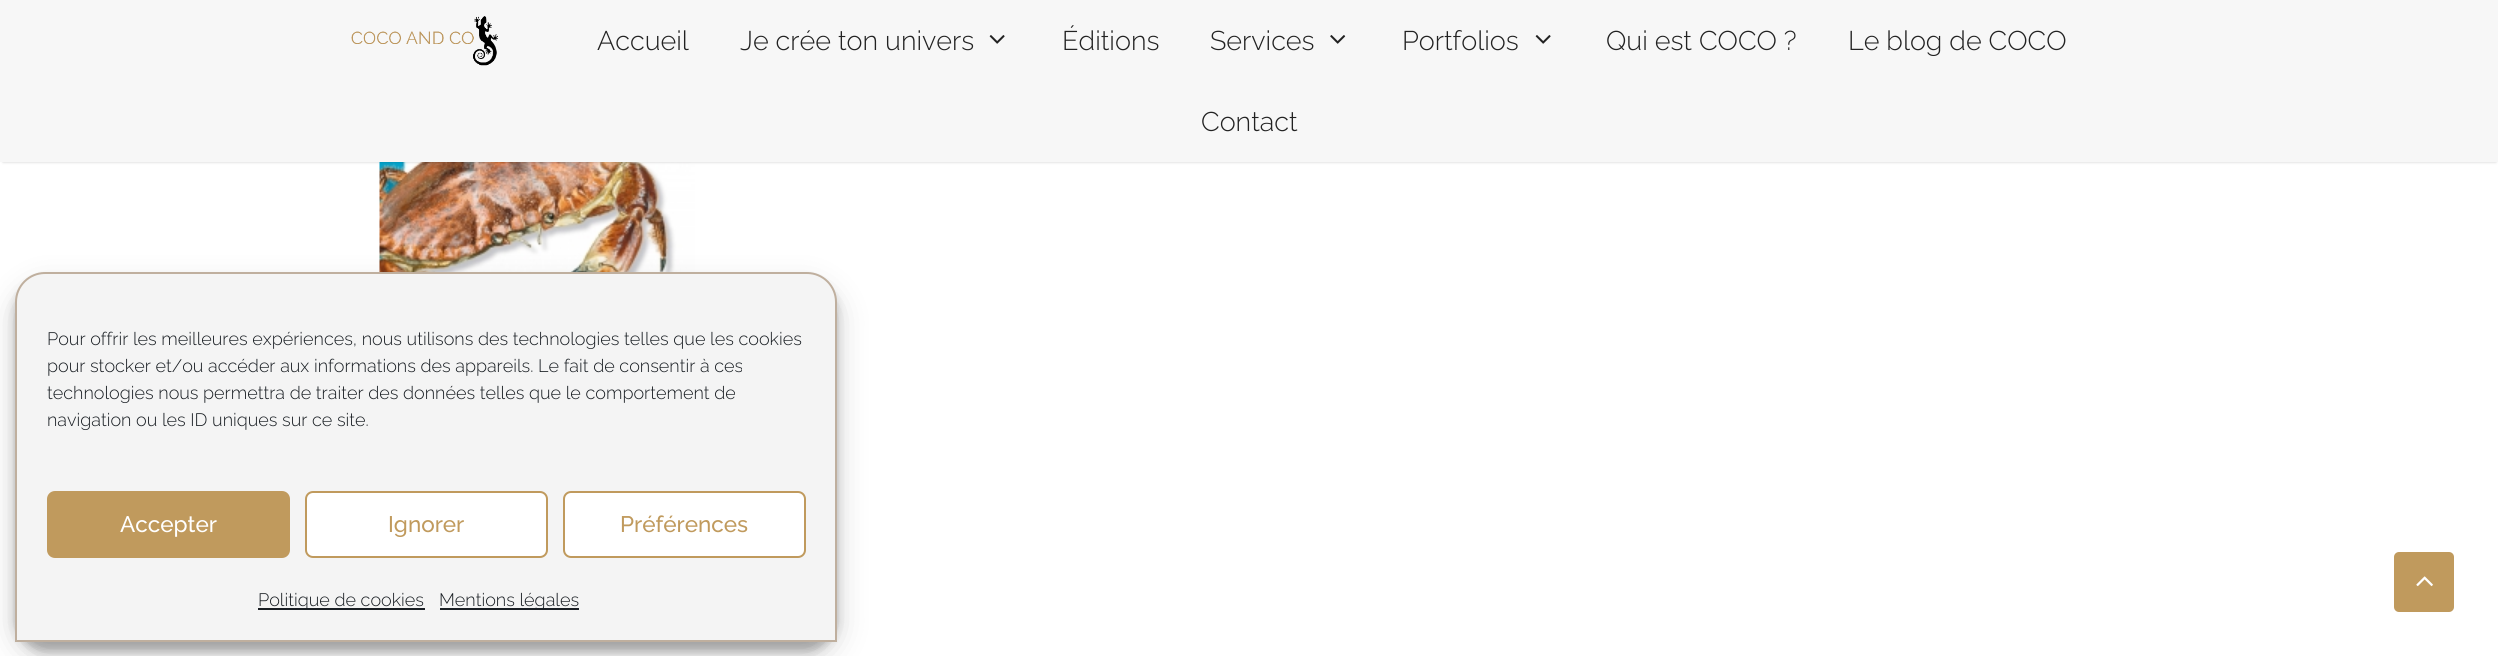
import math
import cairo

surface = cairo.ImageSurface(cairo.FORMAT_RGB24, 2498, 656)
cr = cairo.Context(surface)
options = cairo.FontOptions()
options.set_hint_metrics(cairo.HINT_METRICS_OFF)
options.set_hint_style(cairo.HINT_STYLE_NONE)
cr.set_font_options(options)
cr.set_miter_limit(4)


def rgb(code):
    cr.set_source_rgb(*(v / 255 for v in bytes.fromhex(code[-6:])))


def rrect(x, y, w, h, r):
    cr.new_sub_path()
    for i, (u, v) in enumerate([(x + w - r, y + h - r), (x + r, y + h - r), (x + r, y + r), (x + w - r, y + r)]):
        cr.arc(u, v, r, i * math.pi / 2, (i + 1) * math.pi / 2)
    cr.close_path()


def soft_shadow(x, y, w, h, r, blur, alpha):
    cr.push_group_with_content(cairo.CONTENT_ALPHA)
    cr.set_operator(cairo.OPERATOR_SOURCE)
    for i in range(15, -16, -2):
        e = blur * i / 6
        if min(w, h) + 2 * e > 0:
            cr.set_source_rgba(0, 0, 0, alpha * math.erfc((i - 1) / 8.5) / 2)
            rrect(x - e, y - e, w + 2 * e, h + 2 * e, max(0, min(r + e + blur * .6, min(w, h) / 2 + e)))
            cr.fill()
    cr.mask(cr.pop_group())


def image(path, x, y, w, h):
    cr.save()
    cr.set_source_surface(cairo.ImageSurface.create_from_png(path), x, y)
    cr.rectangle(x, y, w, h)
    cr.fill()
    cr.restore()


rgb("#ffffff")
cr.paint()
image("img/4.png", 379, 162, 316, 110)
rgb("#000000")
soft_shadow(3, 6, 2493, 156, 0, 1.5, 0.2)
rgb("#f7f7f7")
cr.rectangle(0, 0, 2498, 162)
cr.fill()
image("img/1.png", 351, 16, 147, 50)
image("img/2.png", 989, 35, 16, 9)
image("img/3.png", 1330, 35, 16, 9)
image("img/2.png", 1535, 35, 16, 9)
rgb("#000000")
soft_shadow(15, 281, 822, 370, 30, 4.5, 0.23)
soft_shadow(15, 287, 822, 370, 30, 15, 0.19)
rgb("#f4f4f4")
cr.new_path()
cr.move_to(45, 273)
cr.line_to(807, 273)
cr.curve_to(823, 273, 836, 286, 836, 302)
cr.line_to(836, 641)
cr.line_to(16, 641)
cr.line_to(16, 302)
cr.curve_to(16, 286, 29, 273, 45, 273)
cr.close_path()
cr.fill_preserve()
rgb("#bfaf9e")
cr.stroke()
rgb("#c09a5d")
rrect(48, 492, 241, 65, 7)
cr.fill_preserve()
cr.stroke()
rgb("#ffffff")
rrect(306, 492, 241, 65, 7)
cr.fill_preserve()
rgb("#c09a5d")
cr.stroke()
rgb("#ffffff")
rrect(564, 492, 241, 65, 7)
cr.fill_preserve()
rgb("#c09a5d")
cr.stroke()
rgb("#191e23")
cr.rectangle(258, 608, 167, 2)
cr.fill()
cr.rectangle(440, 608, 139, 2)
cr.fill()
rgb("#c09a5d")
rrect(2394, 552, 60, 60, 5)
cr.fill()
image("img/5.png", 2416, 576, 17, 11)
cr.select_font_face("Raleway Light")
cr.set_font_size(27)
rgb("#222222")
for x, y, s in [
    (597, 50, "Accueil"),
    (740, 50, "Je crée ton univers"),
    (1062, 50, "Éditions"),
    (1210, 50, "Services"),
    (1402, 50, "Portfolios"),
    (1606, 50, "Qui est COCO ?"),
    (1848, 50, "Le blog de COCO"),
    (1201, 131, "Contact"),
]:
    cr.move_to(x, y)
    cr.show_text(s)
cr.set_font_size(18)
rgb("#191e23")
for x, y, s in [
    (47, 345, "Pour offrir les meilleures expériences, nous utilisons des technologies telles que les cookies"),
    (47, 372, "pour stocker et/ou accéder aux informations des appareils. Le fait de consentir à ces"),
    (47, 399, "technologies nous permettra de traiter des données telles que le comportement de"),
    (47, 426, "navigation ou les ID uniques sur ce site."),
]:
    cr.move_to(x, y)
    cr.show_text(s)
cr.select_font_face("Raleway Medium")
cr.set_font_size(22.5)
rgb("#ffffff")
cr.move_to(120, 532)
cr.show_text("Accepter")
rgb("#c09a5d")
cr.move_to(388, 532)
cr.show_text("Ignorer")
cr.move_to(620, 532)
cr.show_text("Préférences")
cr.select_font_face("Raleway Light")
cr.set_font_size(18)
rgb("#191e23")
cr.move_to(258, 606)
cr.show_text("Politique de cookies")
cr.move_to(439, 606)
cr.show_text("Mentions légales")
surface.write_to_png("page.png")
